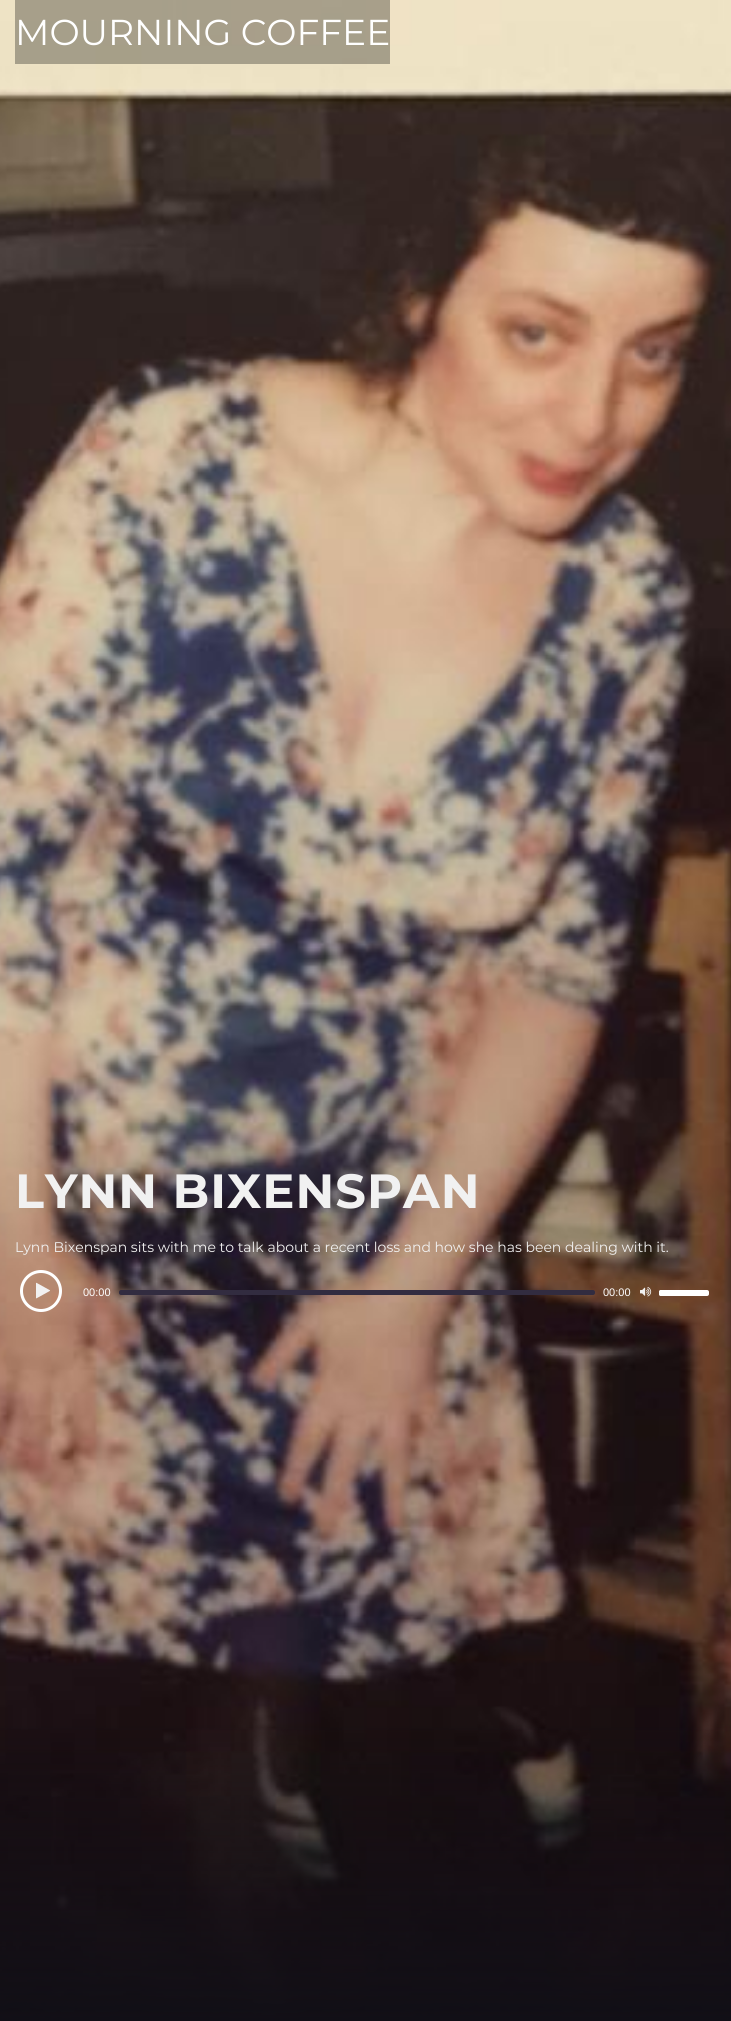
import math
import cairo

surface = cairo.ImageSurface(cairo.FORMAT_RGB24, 731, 2021)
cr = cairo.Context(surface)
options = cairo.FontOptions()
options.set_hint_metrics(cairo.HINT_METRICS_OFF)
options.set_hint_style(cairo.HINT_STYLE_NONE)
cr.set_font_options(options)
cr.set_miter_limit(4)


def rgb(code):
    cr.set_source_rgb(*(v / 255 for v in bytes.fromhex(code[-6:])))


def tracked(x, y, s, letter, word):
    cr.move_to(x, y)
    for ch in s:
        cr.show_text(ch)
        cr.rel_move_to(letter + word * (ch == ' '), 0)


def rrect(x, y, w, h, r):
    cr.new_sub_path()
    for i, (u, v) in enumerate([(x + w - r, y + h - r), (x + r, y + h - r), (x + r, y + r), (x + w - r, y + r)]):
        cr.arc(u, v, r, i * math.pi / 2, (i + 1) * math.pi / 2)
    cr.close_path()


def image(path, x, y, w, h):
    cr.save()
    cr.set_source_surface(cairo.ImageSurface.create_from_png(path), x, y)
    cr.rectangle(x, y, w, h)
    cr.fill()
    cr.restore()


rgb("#ffffff")
cr.paint()
image("img/1.png", 0, 0, 731, 2021)
cr.set_source_rgba(0, 0, 0, 0.3)
cr.rectangle(15, 0, 375, 64)
cr.fill()
cr.arc(41, 1291, 19.5, 0, 2 * math.pi)
rgb("#ffffff")
cr.set_line_width(3)
cr.stroke()
image("img/2.png", 36, 1282, 14, 17)
rgb("#322c40")
rrect(119, 1290, 476, 5, 2)
cr.fill()
image("img/3.png", 640, 1287, 12, 10)
rgb("#ffffff")
rrect(659, 1290, 50, 6, 2)
cr.fill()
rrect(659, 1290, 40, 6, 2)
cr.fill()
cr.select_font_face("Montserrat")
cr.set_font_size(36)
cr.move_to(15, 45)
cr.show_text("MOURNING COFFEE")
cr.select_font_face("Montserrat", cairo.FONT_SLANT_NORMAL, cairo.FONT_WEIGHT_BOLD)
cr.set_font_size(48)
rgb("#f1f1f1")
tracked(15, 1208, "LYNN BIXENSPAN", 1, 0)
cr.select_font_face("Montserrat")
cr.set_font_size(14)
cr.move_to(15, 1252)
cr.show_text("Lynn Bixenspan sits with me to talk about a recent loss and how she has been dealing with it.")
cr.select_font_face("Liberation Sans")
cr.set_font_size(11)
rgb("#ffffff")
cr.move_to(83, 1296)
cr.show_text("00:00")
cr.move_to(603, 1296)
cr.show_text("00:00")
surface.write_to_png("page.png")
